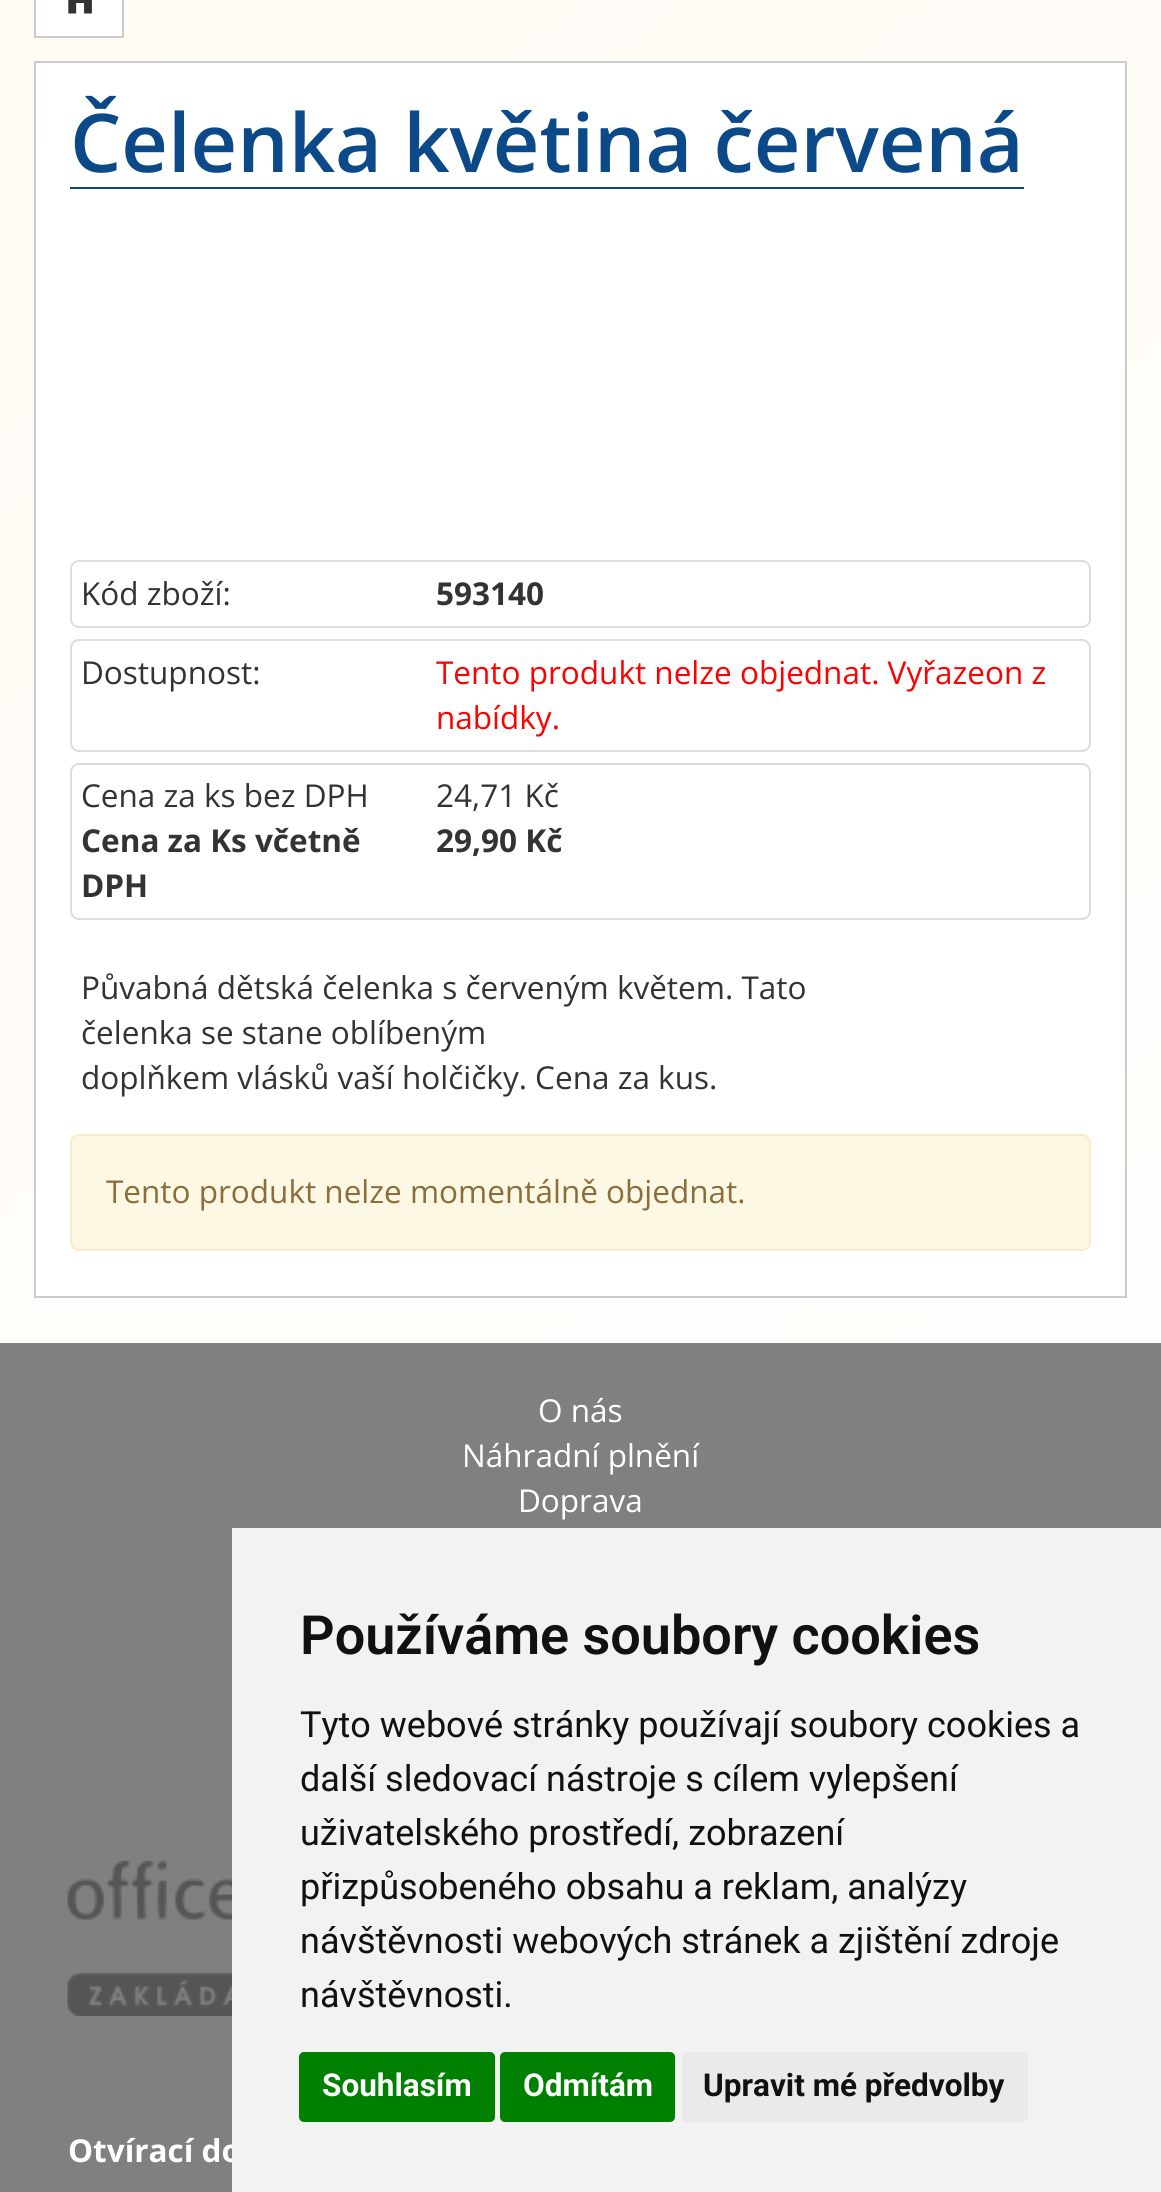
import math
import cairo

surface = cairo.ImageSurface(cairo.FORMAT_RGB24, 1161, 2192)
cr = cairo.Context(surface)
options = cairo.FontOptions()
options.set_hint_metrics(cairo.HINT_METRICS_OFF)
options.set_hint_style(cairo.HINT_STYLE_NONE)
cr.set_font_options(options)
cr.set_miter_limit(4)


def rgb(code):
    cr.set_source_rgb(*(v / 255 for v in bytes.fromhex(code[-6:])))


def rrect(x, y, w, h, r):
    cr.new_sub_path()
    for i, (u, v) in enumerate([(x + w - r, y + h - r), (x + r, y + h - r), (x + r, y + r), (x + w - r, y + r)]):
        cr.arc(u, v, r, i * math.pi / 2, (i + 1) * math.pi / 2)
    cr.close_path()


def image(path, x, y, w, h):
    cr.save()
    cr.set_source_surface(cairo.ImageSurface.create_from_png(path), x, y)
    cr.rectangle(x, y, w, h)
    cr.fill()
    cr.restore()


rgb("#ffffff")
cr.paint()
gradient = cairo.LinearGradient(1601, 1743, -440, -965)
gradient.add_color_stop_rgba(0, 1, 1, 1, 1)
gradient.add_color_stop_rgba(1, 1, 0.976, 0.937, 1)
cr.set_source(gradient)
cr.rectangle(0, 0, 1161, 1343)
cr.fill()
rgb("#ffffff")
cr.rectangle(35, -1, 88, 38)
cr.fill_preserve()
rgb("#cccccc")
cr.stroke()
image("img/1.png", 68, 0, 24, 14)
rgb("#ffffff")
cr.rectangle(35, 62, 1091, 1235)
cr.fill_preserve()
rgb("#cccccc")
cr.stroke()
rgb("#0b4989")
cr.rectangle(70, 187, 954, 2)
cr.fill()
rrect(71, 561, 1019, 66, 8)
rgb("#dddddd")
cr.stroke()
rrect(71, 640, 1019, 111, 8)
cr.stroke()
rrect(71, 764, 1019, 155, 8)
cr.stroke()
rgb("#fcf8e3")
rrect(71, 1135, 1019, 115, 8)
cr.fill_preserve()
rgb("#faebcc")
cr.stroke()
rgb("#808080")
cr.rectangle(0, 1343, 1161, 849)
cr.fill()
image("img/2.png", 67, 1860, 165, 156)
cr.select_font_face("Open Sans SemiBold")
cr.set_font_size(81)
rgb("#0b4989")
cr.move_to(70, 172)
cr.show_text("Čelenka květina červená")
cr.select_font_face("Open Sans")
cr.set_font_size(31.5)
rgb("#333333")
cr.move_to(81, 605)
cr.show_text("Kód zboží:")
cr.select_font_face("Open Sans", cairo.FONT_SLANT_NORMAL, cairo.FONT_WEIGHT_BOLD)
cr.move_to(436, 605)
cr.show_text("593140")
cr.select_font_face("Open Sans")
cr.move_to(81, 684)
cr.show_text("Dostupnost:")
rgb("#ff0000")
cr.move_to(436, 684)
cr.show_text("Tento produkt nelze objednat. Vyřazeon z")
cr.move_to(436, 729)
cr.show_text("nabídky.")
rgb("#333333")
cr.move_to(81, 807)
cr.show_text("Cena za ks bez DPH")
cr.move_to(436, 807)
cr.show_text("24,71 Kč")
cr.select_font_face("Open Sans", cairo.FONT_SLANT_NORMAL, cairo.FONT_WEIGHT_BOLD)
for x, y, s in [
    (81, 852, "Cena za Ks včetně"),
    (81, 897, "DPH"),
    (436, 852, "29,90 Kč"),
]:
    cr.move_to(x, y)
    cr.show_text(s)
cr.select_font_face("Open Sans")
for x, y, s in [
    (81, 999, "Půvabná dětská čelenka s červeným květem. Tato"),
    (81, 1044, "čelenka se stane oblíbeným"),
    (81, 1089, "doplňkem vlásků vaší holčičky. Cena za kus."),
]:
    cr.move_to(x, y)
    cr.show_text(s)
rgb("#8a6d3b")
cr.move_to(106, 1203)
cr.show_text("Tento produkt nelze momentálně objednat.")
rgb("#ffffff")
for x, y, s in [
    (538, 1422, "O nás"),
    (462, 1467, "Náhradní plnění"),
    (518, 1512, "Doprava"),
]:
    cr.move_to(x, y)
    cr.show_text(s)
cr.select_font_face("Open Sans", cairo.FONT_SLANT_NORMAL, cairo.FONT_WEIGHT_BOLD)
cr.move_to(68, 2162)
cr.show_text("Otvírací do")
rgb("#f2f2f2")
cr.rectangle(232, 1528, 929, 664)
cr.fill()
cr.select_font_face("Roboto SemiBold")
cr.set_font_size(54)
rgb("#111111")
cr.move_to(300, 1654)
cr.show_text("Používáme soubory cookies")
cr.select_font_face("Roboto")
cr.set_font_size(36)
for x, y, s in [
    (300, 1737, "Tyto webové stránky používají soubory cookies a"),
    (300, 1791, "další sledovací nástroje s cílem vylepšení"),
    (300, 1845, "uživatelského prostředí, zobrazení"),
    (300, 1899, "přizpůsobeného obsahu a reklam, analýzy"),
    (300, 1953, "návštěvnosti webových stránek a zjištění zdroje"),
    (300, 2007, "návštěvnosti."),
]:
    cr.move_to(x, y)
    cr.show_text(s)
rgb("#008000")
rrect(299, 2052, 196, 70, 5)
cr.fill()
cr.select_font_face("Roboto", cairo.FONT_SLANT_NORMAL, cairo.FONT_WEIGHT_BOLD)
cr.set_font_size(31.5)
rgb("#ffffff")
cr.move_to(322, 2096)
cr.show_text("Souhlasím")
rgb("#008000")
rrect(500, 2052, 175, 70, 5)
cr.fill()
rgb("#ffffff")
cr.move_to(523, 2096)
cr.show_text("Odmítám")
rgb("#eaeaea")
rrect(682, 2052, 346, 70, 5)
cr.fill()
rgb("#111111")
cr.move_to(703, 2096)
cr.show_text("Upravit mé předvolby")
surface.write_to_png("page.png")
